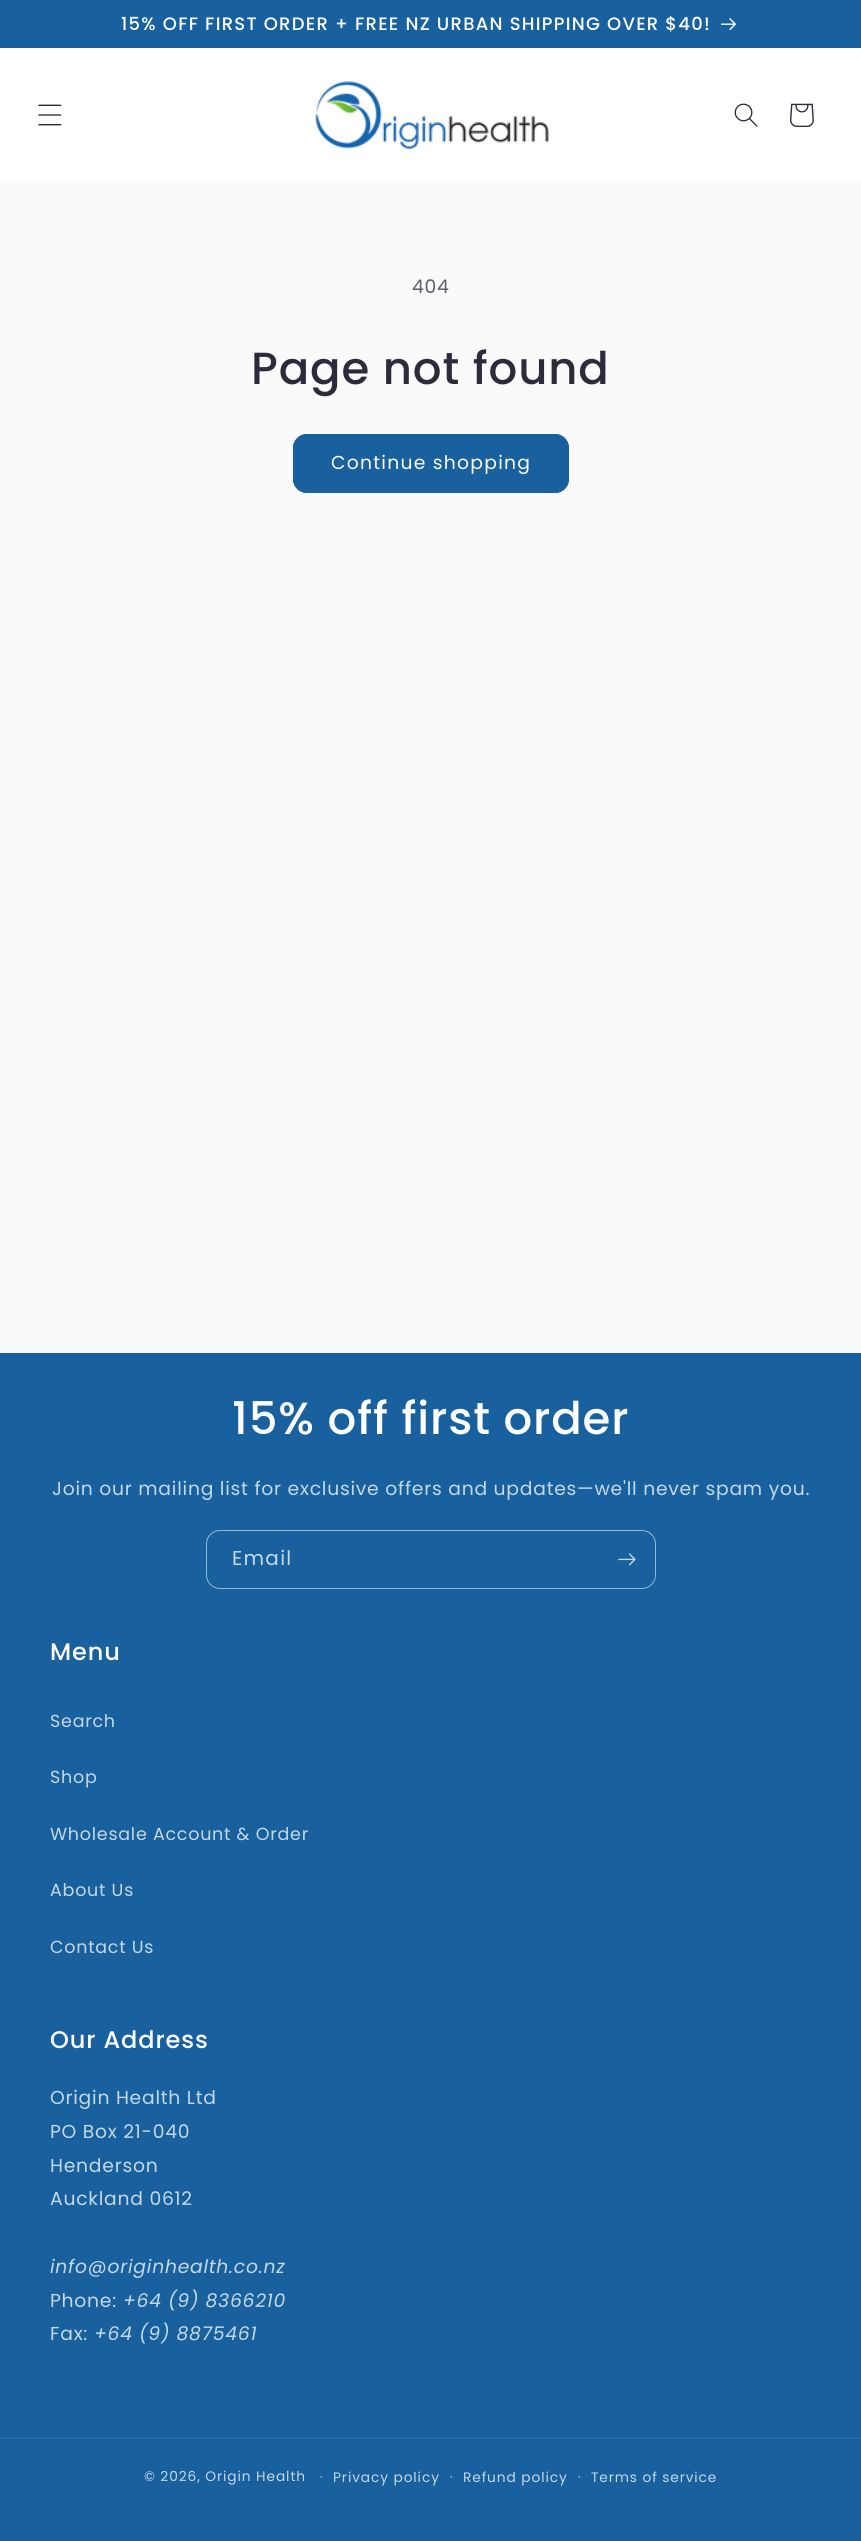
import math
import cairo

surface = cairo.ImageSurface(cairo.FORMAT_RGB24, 861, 2541)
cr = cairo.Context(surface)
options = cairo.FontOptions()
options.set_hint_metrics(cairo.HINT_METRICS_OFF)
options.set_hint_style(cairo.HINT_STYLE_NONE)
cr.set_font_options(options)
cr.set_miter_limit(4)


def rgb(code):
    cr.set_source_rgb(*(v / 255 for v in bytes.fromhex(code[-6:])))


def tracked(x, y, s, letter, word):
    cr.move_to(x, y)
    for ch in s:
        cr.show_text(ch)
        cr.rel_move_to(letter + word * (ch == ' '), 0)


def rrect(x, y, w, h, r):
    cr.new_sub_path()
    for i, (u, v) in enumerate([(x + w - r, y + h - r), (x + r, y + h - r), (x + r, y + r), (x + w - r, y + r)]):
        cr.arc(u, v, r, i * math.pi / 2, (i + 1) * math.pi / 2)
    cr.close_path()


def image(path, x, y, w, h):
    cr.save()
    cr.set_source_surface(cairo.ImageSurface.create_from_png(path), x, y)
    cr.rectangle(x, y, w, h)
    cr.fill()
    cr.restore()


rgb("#fafafa")
cr.paint()
rgb("#18619e")
cr.rectangle(0, 0, 861, 48)
cr.fill()
image("img/1.png", 721, 18, 15, 12)
rgb("#ffffff")
cr.rectangle(0, 48, 861, 133)
cr.fill()
image("img/2.png", 38, 104, 24, 22)
image("img/3.png", 315, 81, 234, 68)
image("img/4.png", 734, 103, 24, 24)
image("img/5.png", 790, 103, 24, 24)
rgb("#18619e")
rrect(293, 434, 276, 59, 14)
cr.fill()
rrect(293.5, 434.5, 275, 58, 13.5)
cr.set_line_width(1)
cr.stroke()
cr.rectangle(0, 1353, 861, 1188)
cr.fill()
rrect(206.5, 1530.5, 449, 58, 13.5)
rgb("#97b8d3")
cr.stroke()
image("img/6.png", 618, 1553, 18, 13)
rgb("#2a6ea6")
cr.rectangle(0, 2438, 861, 1)
cr.fill()
cr.select_font_face("Poppins Medium")
cr.set_font_size(18)
rgb("#ffffff")
tracked(121, 30, "15% OFF FIRST ORDER + FREE NZ URBAN SHIPPING OVER $40!", 1.25, 0)
cr.select_font_face("Poppins")
cr.set_font_size(18.75)
rgb("#615e69")
tracked(412, 293, "404", 0.75, 0)
cr.select_font_face("Poppins Medium")
cr.set_font_size(45)
rgb("#2e2a39")
tracked(251, 384, "Page not found", 0.9, 0)
cr.select_font_face("Poppins")
cr.set_font_size(18.75)
rgb("#fdfbf7")
tracked(331, 469, "Continue shopping", 1.25, 0)
cr.select_font_face("Poppins Medium")
cr.set_font_size(45)
rgb("#ffffff")
tracked(232, 1434, "15% off first order", 0.9, 0)
cr.select_font_face("Poppins")
cr.set_font_size(18.75)
rgb("#c5d8e7")
tracked(52, 1495, "Join our mailing list for exclusive offers and updates—we'll never spam you.", 0.75, 0)
cr.set_font_size(20)
tracked(232, 1565, "Email", 1.25, 0)
cr.select_font_face("Poppins Medium")
cr.set_font_size(24)
rgb("#ffffff")
tracked(50, 1660, "Menu", 0.9, 0)
cr.select_font_face("Poppins")
cr.set_font_size(17.5)
rgb("#c5d8e7")
for x, y, s in [
    (50, 1727, "Search"),
    (50, 1783, "Shop"),
    (50, 1840, "Wholesale Account & Order"),
    (50, 1896, "About Us"),
    (50, 1953, "Contact Us"),
]:
    tracked(x, y, s, 0.75, 0)
cr.select_font_face("Poppins Medium")
cr.set_font_size(24)
rgb("#ffffff")
tracked(50, 2048, "Our Address", 0.9, 0)
cr.select_font_face("Poppins")
cr.set_font_size(18.75)
rgb("#c5d8e7")
for x, y, s in [
    (50, 2104, "Origin Health Ltd"),
    (50, 2138, "PO Box 21-040"),
    (50, 2172, "Henderson"),
    (50, 2205, "Auckland 0612"),
]:
    tracked(x, y, s, 0.75, 0)
cr.select_font_face("Poppins", cairo.FONT_SLANT_ITALIC)
tracked(50, 2273, "info@originhealth.co.nz", 0.75, 0)
cr.select_font_face("Poppins")
tracked(50, 2307, "Phone:", 0.75, 0)
cr.select_font_face("Poppins", cairo.FONT_SLANT_ITALIC)
tracked(123, 2307, "+64 (9) 8366210", 0.75, 0)
cr.select_font_face("Poppins")
tracked(50, 2340, "Fax:", 0.75, 0)
cr.select_font_face("Poppins", cairo.FONT_SLANT_ITALIC)
tracked(94, 2340, "+64 (9) 8875461", 0.75, 0)
cr.select_font_face("Poppins")
cr.set_font_size(13.75)
tracked(144, 2481, "© 2026, Origin Health", 0.9, 0)
cr.set_font_size(12)
tracked(320, 2481, "·", 0.9, 0)
cr.set_font_size(13.75)
tracked(333, 2482, "Privacy policy", 0.9, 0)
cr.set_font_size(12)
tracked(450, 2481, "·", 0.9, 0)
cr.set_font_size(13.75)
tracked(463, 2482, "Refund policy", 0.9, 0)
cr.set_font_size(12)
tracked(578, 2481, "·", 0.9, 0)
cr.set_font_size(13.75)
tracked(591, 2482, "Terms of service", 0.9, 0)
surface.write_to_png("page.png")
